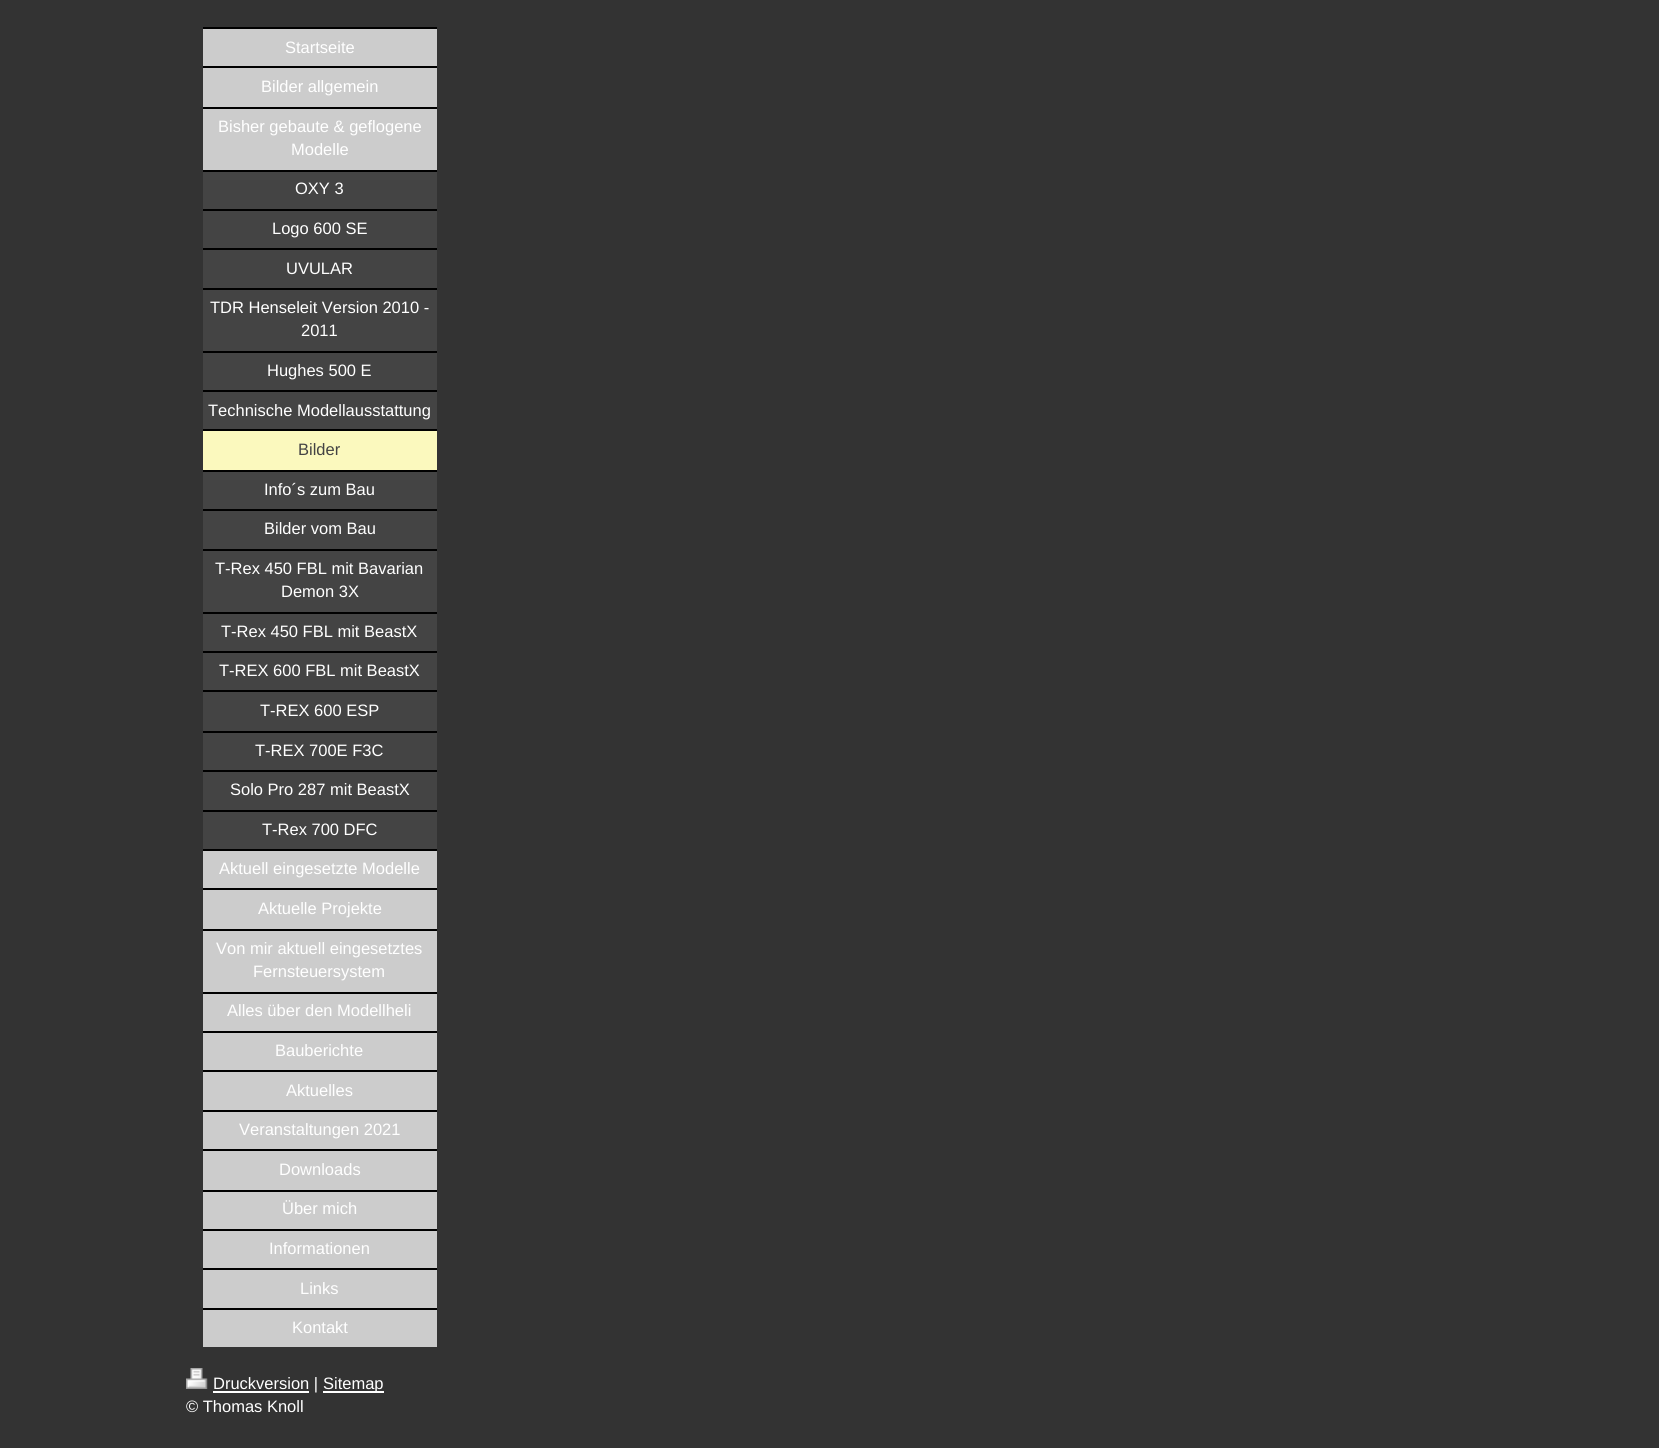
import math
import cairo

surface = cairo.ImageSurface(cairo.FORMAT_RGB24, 1659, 1448)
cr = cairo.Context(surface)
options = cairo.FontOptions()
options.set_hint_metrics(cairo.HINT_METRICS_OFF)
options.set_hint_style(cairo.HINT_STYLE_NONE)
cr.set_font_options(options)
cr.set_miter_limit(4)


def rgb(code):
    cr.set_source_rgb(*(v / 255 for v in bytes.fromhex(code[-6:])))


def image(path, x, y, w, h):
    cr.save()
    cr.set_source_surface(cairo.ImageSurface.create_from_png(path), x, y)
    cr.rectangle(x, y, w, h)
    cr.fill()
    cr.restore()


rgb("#333333")
cr.paint()
for x, y, w, h, color in [
    (203, 29, 234, 37, "#cccccc"),
    (203, 27, 234, 2, "#000000"),
    (203, 68, 234, 39, "#cccccc"),
    (203, 66, 234, 2, "#000000"),
    (203, 109, 234, 61, "#cccccc"),
    (203, 107, 234, 2, "#000000"),
    (203, 172, 234, 37, "#444444"),
    (203, 170, 234, 2, "#000000"),
    (203, 211, 234, 37, "#444444"),
    (203, 209, 234, 2, "#000000"),
    (203, 250, 234, 38, "#444444"),
    (203, 248, 234, 2, "#000000"),
    (203, 290, 234, 61, "#444444"),
    (203, 288, 234, 2, "#000000"),
    (203, 353, 234, 37, "#444444"),
    (203, 351, 234, 2, "#000000"),
    (203, 392, 234, 37, "#444444"),
    (203, 390, 234, 2, "#000000"),
    (203, 431, 234, 39, "#fbf9be"),
    (203, 429, 234, 2, "#000000"),
    (203, 472, 234, 37, "#444444"),
    (203, 470, 234, 2, "#000000"),
    (203, 511, 234, 38, "#444444"),
    (203, 509, 234, 2, "#000000"),
    (203, 551, 234, 61, "#444444"),
    (203, 549, 234, 2, "#000000"),
    (203, 614, 234, 37, "#444444"),
    (203, 612, 234, 2, "#000000"),
    (203, 653, 234, 37, "#444444"),
    (203, 651, 234, 2, "#000000"),
    (203, 692, 234, 39, "#444444"),
    (203, 690, 234, 2, "#000000"),
    (203, 733, 234, 37, "#444444"),
    (203, 731, 234, 2, "#000000"),
    (203, 772, 234, 38, "#444444"),
    (203, 770, 234, 2, "#000000"),
    (203, 812, 234, 37, "#444444"),
    (203, 810, 234, 2, "#000000"),
    (203, 851, 234, 37, "#cccccc"),
    (203, 849, 234, 2, "#000000"),
    (203, 890, 234, 39, "#cccccc"),
    (203, 888, 234, 2, "#000000"),
    (203, 931, 234, 61, "#cccccc"),
    (203, 929, 234, 2, "#000000"),
    (203, 994, 234, 37, "#cccccc"),
    (203, 992, 234, 2, "#000000"),
    (203, 1033, 234, 37, "#cccccc"),
    (203, 1031, 234, 2, "#000000"),
    (203, 1072, 234, 38, "#cccccc"),
    (203, 1070, 234, 2, "#000000"),
    (203, 1112, 234, 37, "#cccccc"),
    (203, 1110, 234, 2, "#000000"),
    (203, 1151, 234, 39, "#cccccc"),
    (203, 1149, 234, 2, "#000000"),
    (203, 1192, 234, 37, "#cccccc"),
    (203, 1190, 234, 2, "#000000"),
    (203, 1231, 234, 37, "#cccccc"),
    (203, 1229, 234, 2, "#000000"),
    (203, 1270, 234, 38, "#cccccc"),
    (203, 1268, 234, 2, "#000000"),
    (203, 1310, 234, 37, "#cccccc"),
    (203, 1308, 234, 2, "#000000"),
]:
    rgb(color)
    cr.rectangle(x, y, w, h)
    cr.fill()
image("img/1.png", 186, 1368, 22, 21)
rgb("#ffffff")
cr.rectangle(213, 1391, 96, 2)
cr.fill()
cr.rectangle(323, 1391, 61, 2)
cr.fill()
cr.select_font_face("Liberation Sans")
cr.set_font_size(16.5)
for x, y, s in [
    (285, 53, "Startseite"),
    (261, 92, "Bilder allgemein"),
    (218, 132, "Bisher gebaute & geflogene"),
    (291, 155, "Modelle"),
    (295, 194, "OXY 3"),
    (272, 234, "Logo 600 SE"),
    (286, 274, "UVULAR"),
    (210, 313, "TDR Henseleit Version 2010 -"),
    (301, 336, "2011"),
    (267, 376, "Hughes 500 E"),
    (208, 416, "Technische Modellausstattung"),
]:
    cr.move_to(x, y)
    cr.show_text(s)
rgb("#444444")
cr.move_to(298, 455)
cr.show_text("Bilder")
rgb("#ffffff")
for x, y, s in [
    (264, 495, "Info´s zum Bau"),
    (264, 534, "Bilder vom Bau"),
    (215, 574, "T-Rex 450 FBL mit Bavarian"),
    (281, 597, "Demon 3X"),
    (221, 637, "T-Rex 450 FBL mit BeastX"),
    (219, 676, "T-REX 600 FBL mit BeastX"),
    (260, 716, "T-REX 600 ESP"),
    (255, 756, "T-REX 700E F3C"),
    (230, 795, "Solo Pro 287 mit BeastX"),
    (262, 835, "T-Rex 700 DFC"),
    (219, 874, "Aktuell eingesetzte Modelle"),
    (258, 914, "Aktuelle Projekte"),
    (216, 954, "Von mir aktuell eingesetztes"),
    (253, 977, "Fernsteuersystem"),
    (227, 1016, "Alles über den Modellheli"),
    (275, 1056, "Bauberichte"),
    (286, 1096, "Aktuelles"),
    (239, 1135, "Veranstaltungen 2021"),
    (279, 1175, "Downloads"),
    (282, 1214, "Über mich"),
    (269, 1254, "Informationen"),
    (300, 1294, "Links"),
    (292, 1333, "Kontakt"),
    (213, 1389, "Druckversion |"),
    (323, 1389, "Sitemap"),
    (186, 1412, "© Thomas Knoll"),
]:
    cr.move_to(x, y)
    cr.show_text(s)
surface.write_to_png("page.png")
